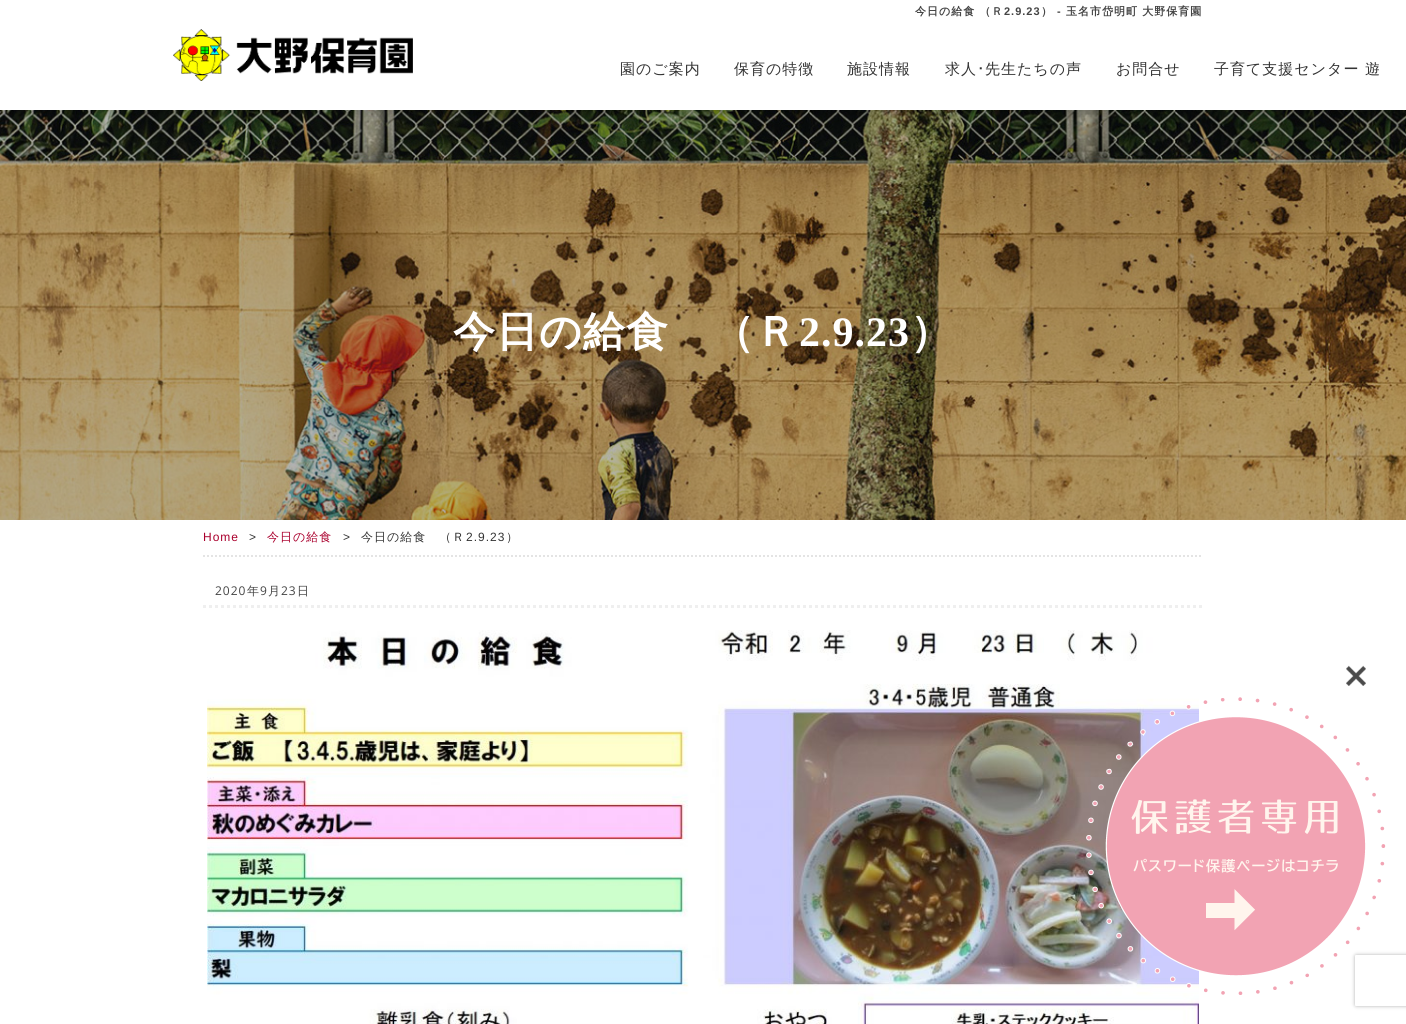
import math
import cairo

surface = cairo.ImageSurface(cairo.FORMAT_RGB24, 1406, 1024)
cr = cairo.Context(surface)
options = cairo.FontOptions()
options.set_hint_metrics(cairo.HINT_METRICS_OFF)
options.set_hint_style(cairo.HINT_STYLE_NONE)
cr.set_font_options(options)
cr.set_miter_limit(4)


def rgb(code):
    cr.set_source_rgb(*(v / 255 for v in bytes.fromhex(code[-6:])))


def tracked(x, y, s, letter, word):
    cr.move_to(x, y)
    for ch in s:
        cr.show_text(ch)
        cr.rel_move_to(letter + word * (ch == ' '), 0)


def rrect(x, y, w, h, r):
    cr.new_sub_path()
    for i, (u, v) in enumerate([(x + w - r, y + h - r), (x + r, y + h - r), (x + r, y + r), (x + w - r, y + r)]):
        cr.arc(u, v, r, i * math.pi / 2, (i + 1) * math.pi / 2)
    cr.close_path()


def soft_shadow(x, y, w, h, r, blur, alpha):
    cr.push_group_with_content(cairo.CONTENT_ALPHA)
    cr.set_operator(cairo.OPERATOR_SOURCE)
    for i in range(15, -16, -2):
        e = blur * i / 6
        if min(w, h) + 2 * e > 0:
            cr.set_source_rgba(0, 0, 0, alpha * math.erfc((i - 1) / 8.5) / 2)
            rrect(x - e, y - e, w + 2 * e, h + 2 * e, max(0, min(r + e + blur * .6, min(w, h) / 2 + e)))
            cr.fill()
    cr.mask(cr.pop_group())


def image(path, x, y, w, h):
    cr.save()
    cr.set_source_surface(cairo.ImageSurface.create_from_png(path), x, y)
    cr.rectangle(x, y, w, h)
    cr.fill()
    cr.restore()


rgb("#ffffff")
cr.paint()
image("img/2.png", 0, 110, 1406, 410)
cr.save()
cr.rectangle(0, 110, 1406, 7)
cr.clip()
rgb("#000000")
soft_shadow(1, 1, 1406, 110, 0, 5, 0.2)
cr.restore()
image("img/1.png", 173, 29, 240, 52)
cr.new_path()
cr.move_to(203, 556)
cr.line_to(1203, 556)
rgb("#e4e4e4")
cr.set_dash([2, 2])
cr.stroke()
cr.new_path()
cr.move_to(203, 606.5)
cr.line_to(1203, 606.5)
rgb("#efefef")
cr.set_line_width(3)
cr.set_dash([3, 3])
cr.stroke()
image("img/3.png", 207, 630, 992, 394)
image("img/4.png", 1346, 665, 20, 21)
cr.save()
cr.set_fill_rule(cairo.FILL_RULE_EVEN_ODD)
cr.new_path()
cr.move_to(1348, 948)
cr.line_to(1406, 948)
cr.line_to(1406, 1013)
cr.line_to(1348, 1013)
cr.close_path()
cr.move_to(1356.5, 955)
cr.line_to(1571.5, 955)
cr.curve_to(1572.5, 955, 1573, 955.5, 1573, 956.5)
cr.line_to(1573, 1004.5)
cr.curve_to(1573, 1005.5, 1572.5, 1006, 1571.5, 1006)
cr.line_to(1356.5, 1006)
cr.curve_to(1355.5, 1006, 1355, 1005.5, 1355, 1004.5)
cr.line_to(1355, 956.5)
cr.curve_to(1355, 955.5, 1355.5, 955, 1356.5, 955)
cr.close_path()
cr.clip()
rgb("#b3b3b3")
soft_shadow(1355, 955, 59, 51, 1.5, 2, 1)
cr.restore()
image("img/5.png", 1086, 697, 300, 298)
cr.select_font_face("WenQuanYi Zen Hei", cairo.FONT_SLANT_NORMAL, cairo.FONT_WEIGHT_BOLD)
cr.set_font_size(11)
rgb("#444444")
tracked(915, 15, "今日の給食 （Ｒ", 1, 0)
cr.select_font_face("Liberation Sans", cairo.FONT_SLANT_NORMAL, cairo.FONT_WEIGHT_BOLD)
tracked(1004, 15, "2.9.23", 1, 0)
cr.select_font_face("WenQuanYi Zen Hei", cairo.FONT_SLANT_NORMAL, cairo.FONT_WEIGHT_BOLD)
tracked(1041, 15, "）", 1, 0)
cr.select_font_face("Liberation Sans", cairo.FONT_SLANT_NORMAL, cairo.FONT_WEIGHT_BOLD)
tracked(1057, 15, "-", 1, 0)
cr.select_font_face("WenQuanYi Zen Hei", cairo.FONT_SLANT_NORMAL, cairo.FONT_WEIGHT_BOLD)
tracked(1066, 15, "玉名市岱明町 大野保育園", 1, 0)
cr.select_font_face("WenQuanYi Zen Hei Medium")
cr.set_font_size(15)
rgb("#333333")
for x, y, s in [
    (620, 74, "園のご案内"),
    (734, 74, "保育の特徴"),
    (847, 74, "施設情報"),
    (945, 74, "求人"),
]:
    tracked(x, y, s, 1, 0)
cr.select_font_face("IPAPGothic")
tracked(977, 74, "･", 1, 0)
cr.select_font_face("WenQuanYi Zen Hei Medium")
for x, y, s in [
    (985, 74, "先生たちの声"),
    (1116, 74, "お問合せ"),
    (1214, 74, "子育て支援センター 遊"),
]:
    tracked(x, y, s, 1, 0)
cr.select_font_face("Liberation Sans")
cr.set_font_size(12)
rgb("#aa002d")
tracked(203, 541, "Home", 1, 0)
rgb("#333333")
tracked(249, 541, ">", 1, 0)
cr.select_font_face("WenQuanYi Zen Hei Medium")
rgb("#aa002d")
tracked(267, 541, "今日の給食", 1, 0)
cr.select_font_face("Liberation Sans")
rgb("#333333")
tracked(343, 541, ">", 1, 0)
cr.select_font_face("WenQuanYi Zen Hei Medium")
tracked(361, 541, "今日の給食　（Ｒ", 1, 0)
cr.select_font_face("Liberation Sans")
tracked(466, 541, "2.9.23", 1, 0)
cr.select_font_face("WenQuanYi Zen Hei Medium")
tracked(506, 541, "）", 1, 0)
cr.select_font_face("WenQuanYi Zen Hei", cairo.FONT_SLANT_NORMAL, cairo.FONT_WEIGHT_BOLD)
cr.set_font_size(42)
rgb("#ffffff")
tracked(453, 346, "今日の給食　（Ｒ", 1, 0)
cr.select_font_face("Liberation Serif", cairo.FONT_SLANT_NORMAL, cairo.FONT_WEIGHT_BOLD)
tracked(799, 346, "2.9.23", 1, 0)
cr.select_font_face("WenQuanYi Zen Hei", cairo.FONT_SLANT_NORMAL, cairo.FONT_WEIGHT_BOLD)
tracked(910, 346, "）", 1, 0)
cr.select_font_face("Open Sans")
cr.set_font_size(12)
rgb("#444444")
tracked(215, 595, "2020", 1, 0)
cr.select_font_face("WenQuanYi Zen Hei Medium")
tracked(247, 595, "年", 1, 0)
cr.select_font_face("Open Sans")
tracked(260, 595, "9", 1, 0)
cr.select_font_face("WenQuanYi Zen Hei Medium")
tracked(268, 595, "月", 1, 0)
cr.select_font_face("Open Sans")
tracked(281, 595, "23", 1, 0)
cr.select_font_face("WenQuanYi Zen Hei Medium")
tracked(297, 595, "日", 1, 0)
surface.write_to_png("page.png")
